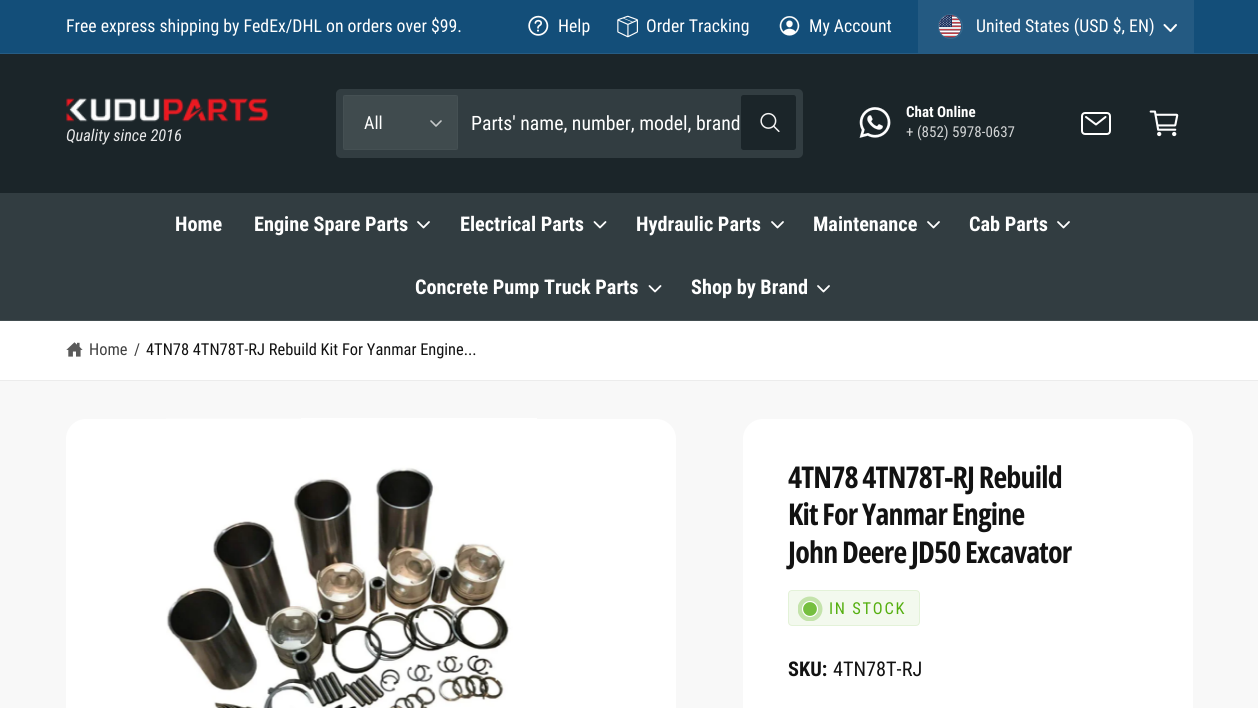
import math
import cairo

surface = cairo.ImageSurface(cairo.FORMAT_RGB24, 1258, 708)
cr = cairo.Context(surface)
options = cairo.FontOptions()
options.set_hint_metrics(cairo.HINT_METRICS_OFF)
options.set_hint_style(cairo.HINT_STYLE_NONE)
cr.set_font_options(options)
cr.set_miter_limit(4)


def rgb(code):
    cr.set_source_rgb(*(v / 255 for v in bytes.fromhex(code[-6:])))


def tracked(x, y, s, letter, word):
    cr.move_to(x, y)
    for ch in s:
        cr.show_text(ch)
        cr.rel_move_to(letter + word * (ch == ' '), 0)


def rrect(x, y, w, h, r):
    cr.new_sub_path()
    for i, (u, v) in enumerate([(x + w - r, y + h - r), (x + r, y + h - r), (x + r, y + r), (x + w - r, y + r)]):
        cr.arc(u, v, r, i * math.pi / 2, (i + 1) * math.pi / 2)
    cr.close_path()


def image(path, x, y, w, h):
    cr.save()
    cr.set_source_surface(cairo.ImageSurface.create_from_png(path), x, y)
    cr.rectangle(x, y, w, h)
    cr.fill()
    cr.restore()


rgb("#134e79")
cr.paint()
rgb("#265c84")
cr.rectangle(0, 53, 1258, 1)
cr.fill()
image("img/1.png", 528, 15, 21, 21)
image("img/2.png", 617, 15, 21, 23)
image("img/3.png", 779, 16, 21, 20)
rgb("#245a82")
cr.rectangle(918, 0, 276, 53)
cr.fill()
cr.arc(950.5, 26.5, 12, 0, 2 * math.pi)
rgb("#3a6b8f")
cr.set_line_width(1)
cr.stroke()
image("img/4.png", 939, 15, 22, 23)
cr.new_path()
cr.move_to(1164.5, 25)
cr.line_to(1170.5, 31)
cr.line_to(1176, 25)
rgb("#ffffff")
cr.set_line_width(2)
cr.set_line_cap(cairo.LINE_CAP_ROUND)
cr.set_line_join(cairo.LINE_JOIN_ROUND)
cr.stroke()
rgb("#1b2529")
cr.rectangle(0, 54, 1258, 139)
cr.fill()
rgb("#323d41")
rrect(336, 89, 467, 69, 5)
cr.fill()
rgb("#404b4e")
rrect(343, 95, 115, 55, 2.5)
cr.fill()
cr.rectangle(343.5, 95.5, 114, 54)
cr.set_source_rgba(1, 1, 1, 0.03)
cr.set_line_width(1)
cr.set_line_cap(cairo.LINE_CAP_BUTT)
cr.set_line_join(cairo.LINE_JOIN_MITER)
cr.stroke()
cr.new_path()
cr.move_to(431, 121)
cr.line_to(436, 126)
cr.line_to(441, 121)
rgb("#c6c9ca")
cr.set_line_width(1.6)
cr.set_line_cap(cairo.LINE_CAP_ROUND)
cr.set_line_join(cairo.LINE_JOIN_ROUND)
cr.stroke()
rgb("#1b2529")
rrect(741, 95, 55, 55, 2.5)
cr.fill()
image("img/5.png", 760, 112, 20, 21)
image("img/6.png", 859, 107, 32, 31)
rrect(1082, 113, 28, 21, 3)
rgb("#ffffff")
cr.set_line_width(2)
cr.set_line_cap(cairo.LINE_CAP_BUTT)
cr.set_line_join(cairo.LINE_JOIN_MITER)
cr.stroke()
cr.new_path()
cr.move_to(1086, 117)
cr.line_to(1096, 124.5)
cr.line_to(1105.5, 117)
cr.set_line_cap(cairo.LINE_CAP_ROUND)
cr.set_line_join(cairo.LINE_JOIN_ROUND)
cr.stroke()
image("img/7.png", 1149, 110, 30, 27)
image("img/8.png", 66, 98, 203, 24)
rgb("#323d41")
cr.rectangle(0, 193, 1258, 127)
cr.fill()
rgb("#424d50")
cr.rectangle(0, 320, 1258, 1)
cr.fill()
cr.new_path()
cr.move_to(418, 222)
cr.line_to(423.5, 227.5)
cr.line_to(429, 222)
rgb("#ffffff")
cr.set_line_width(1.8)
cr.stroke()
cr.new_path()
cr.move_to(594.5, 222)
cr.line_to(600, 227.5)
cr.line_to(605.5, 222)
cr.stroke()
cr.new_path()
cr.move_to(772, 222)
cr.line_to(777.5, 227.5)
cr.line_to(783, 222)
cr.stroke()
cr.new_path()
cr.move_to(928, 222)
cr.line_to(933.5, 227.5)
cr.line_to(939, 222)
cr.stroke()
cr.new_path()
cr.move_to(1058, 222)
cr.line_to(1063.5, 227.5)
cr.line_to(1069, 222)
cr.stroke()
cr.new_path()
cr.move_to(649.5, 286)
cr.line_to(655, 291.5)
cr.line_to(660.5, 286)
cr.stroke()
cr.new_path()
cr.move_to(818, 286)
cr.line_to(823.5, 291.5)
cr.line_to(829, 286)
cr.stroke()
cr.rectangle(0, 321, 1258, 59)
cr.fill()
rgb("#ececec")
cr.rectangle(0, 380, 1258, 1)
cr.fill()
image("img/9.png", 66, 342, 17, 15)
rgb("#f8f8f8")
cr.rectangle(0, 381, 1258, 327)
cr.fill()
rgb("#ffffff")
rrect(66, 419, 610, 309, 20)
cr.fill()
image("img/10.png", 166, 418, 371, 290)
rrect(743, 419, 450, 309, 20)
cr.fill()
rgb("#f3f9ee")
rrect(788, 590, 132, 36, 4)
cr.fill()
rrect(788.5, 590.5, 131, 35, 3.5)
cr.set_source_rgba(0.333, 0.686, 0.063, 0.1)
cr.set_line_width(1)
cr.set_line_cap(cairo.LINE_CAP_BUTT)
cr.set_line_join(cairo.LINE_JOIN_MITER)
cr.stroke()
cr.save()
cr.rectangle(798, 596, 25, 25)
cr.clip()
rgb("#c4e3ab")
cr.arc(810, 609, 12.5, 0, 2 * math.pi)
cr.fill()
cr.restore()
rgb("#76bf3f")
cr.arc(810, 609, 7.5, 0, 2 * math.pi)
cr.fill_preserve()
rgb("#ffffff")
cr.set_line_width(1.2)
cr.stroke()
cr.select_font_face("Roboto Condensed")
cr.set_font_size(17.75)
for x, y, s in [
    (66, 32, "Free express shipping by FedEx/DHL on orders over $99."),
    (558, 32, "Help"),
    (646, 32, "Order Tracking"),
    (809, 32, "My Account"),
    (976, 32, "United States (USD $, EN)"),
]:
    cr.move_to(x, y)
    cr.show_text(s)
cr.set_font_size(18)
cr.move_to(364, 129)
cr.show_text("All")
cr.set_font_size(19.75)
cr.move_to(471, 130)
cr.show_text("Parts' name, number, model, brand")
cr.select_font_face("Roboto Condensed", cairo.FONT_SLANT_NORMAL, cairo.FONT_WEIGHT_BOLD)
cr.set_font_size(15)
cr.move_to(906, 117)
cr.show_text("Chat Online")
cr.select_font_face("Roboto Condensed")
rgb("#d1d3d4")
cr.move_to(906, 137)
cr.show_text("+ (852) 5978-0637")
cr.select_font_face("Roboto Condensed", cairo.FONT_SLANT_ITALIC)
cr.set_font_size(16.4)
rgb("#e8e9ea")
cr.move_to(66, 141)
cr.show_text("Quality since 2016")
cr.select_font_face("Roboto Condensed", cairo.FONT_SLANT_NORMAL, cairo.FONT_WEIGHT_BOLD)
cr.set_font_size(20.25)
rgb("#ffffff")
for x, y, s in [
    (175, 231, "Home"),
    (254, 231, "Engine Spare Parts"),
    (460, 231, "Electrical Parts"),
    (636, 231, "Hydraulic Parts"),
    (813, 231, "Maintenance"),
    (969, 231, "Cab Parts"),
    (415, 294, "Concrete Pump Truck Parts"),
    (691, 294, "Shop by Brand"),
]:
    cr.move_to(x, y)
    cr.show_text(s)
cr.select_font_face("Roboto Condensed")
cr.set_font_size(16.4)
rgb("#414141")
cr.move_to(89, 355)
cr.show_text("Home")
cr.move_to(134, 355)
cr.show_text("/")
rgb("#121212")
cr.move_to(146, 355)
cr.show_text("4TN78 4TN78T-RJ Rebuild Kit For Yanmar Engine...")
cr.select_font_face("Open Sans Condensed", cairo.FONT_SLANT_NORMAL, cairo.FONT_WEIGHT_BOLD)
cr.set_font_size(30)
for x, y, s in [
    (788, 488, "4TN78 4TN78T-RJ Rebuild"),
    (788, 525, "Kit For Yanmar Engine"),
    (788, 563, "John Deere JD50 Excavator"),
]:
    tracked(x, y, s, -0.8, 0)
cr.select_font_face("Roboto Condensed")
cr.set_font_size(16.4)
rgb("#55af10")
tracked(829, 614, "IN STOCK", 1.75, 0)
cr.select_font_face("Roboto Condensed", cairo.FONT_SLANT_NORMAL, cairo.FONT_WEIGHT_BOLD)
cr.set_font_size(20.25)
rgb("#121212")
cr.move_to(788, 676)
cr.show_text("SKU:")
cr.select_font_face("Roboto Condensed")
cr.move_to(833, 676)
cr.show_text("4TN78T-RJ")
surface.write_to_png("page.png")
